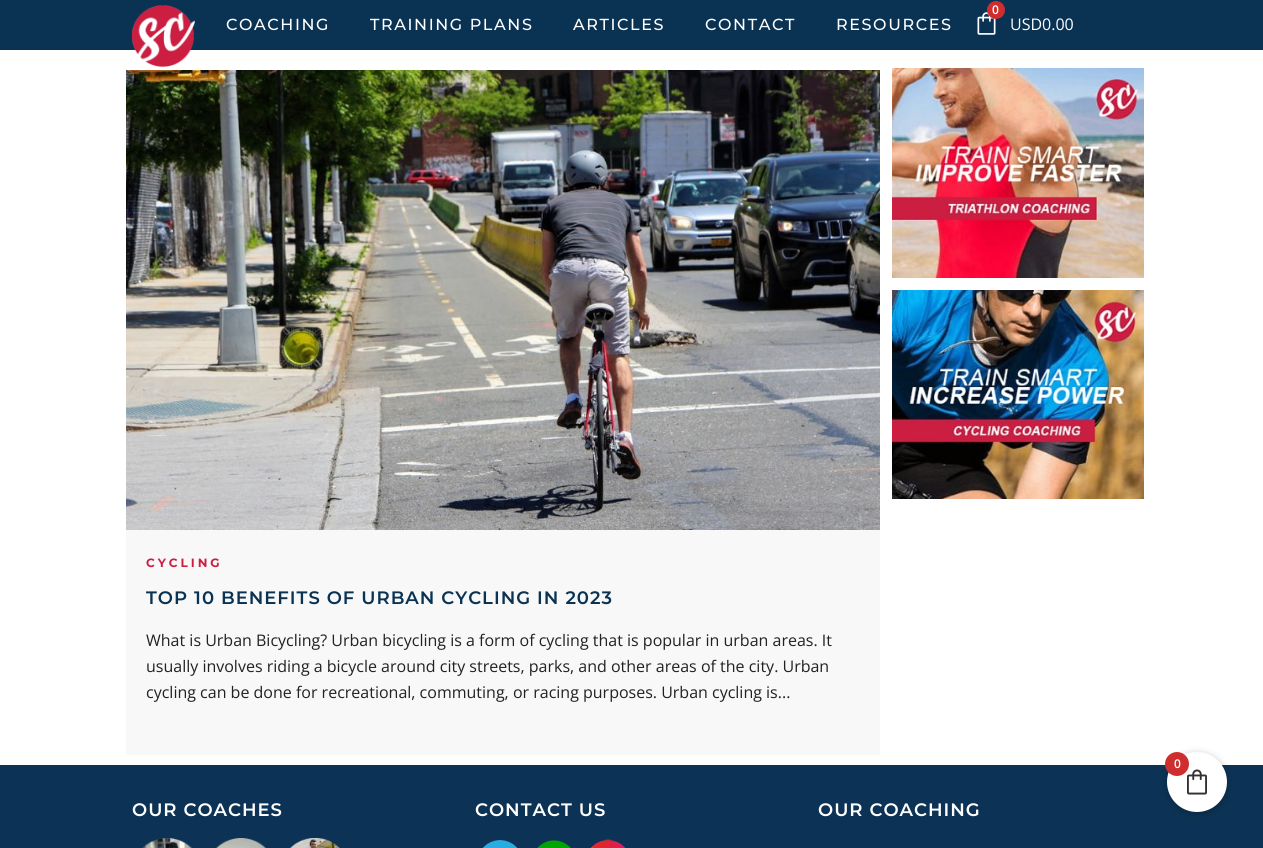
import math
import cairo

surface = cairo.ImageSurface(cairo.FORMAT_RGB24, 1263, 848)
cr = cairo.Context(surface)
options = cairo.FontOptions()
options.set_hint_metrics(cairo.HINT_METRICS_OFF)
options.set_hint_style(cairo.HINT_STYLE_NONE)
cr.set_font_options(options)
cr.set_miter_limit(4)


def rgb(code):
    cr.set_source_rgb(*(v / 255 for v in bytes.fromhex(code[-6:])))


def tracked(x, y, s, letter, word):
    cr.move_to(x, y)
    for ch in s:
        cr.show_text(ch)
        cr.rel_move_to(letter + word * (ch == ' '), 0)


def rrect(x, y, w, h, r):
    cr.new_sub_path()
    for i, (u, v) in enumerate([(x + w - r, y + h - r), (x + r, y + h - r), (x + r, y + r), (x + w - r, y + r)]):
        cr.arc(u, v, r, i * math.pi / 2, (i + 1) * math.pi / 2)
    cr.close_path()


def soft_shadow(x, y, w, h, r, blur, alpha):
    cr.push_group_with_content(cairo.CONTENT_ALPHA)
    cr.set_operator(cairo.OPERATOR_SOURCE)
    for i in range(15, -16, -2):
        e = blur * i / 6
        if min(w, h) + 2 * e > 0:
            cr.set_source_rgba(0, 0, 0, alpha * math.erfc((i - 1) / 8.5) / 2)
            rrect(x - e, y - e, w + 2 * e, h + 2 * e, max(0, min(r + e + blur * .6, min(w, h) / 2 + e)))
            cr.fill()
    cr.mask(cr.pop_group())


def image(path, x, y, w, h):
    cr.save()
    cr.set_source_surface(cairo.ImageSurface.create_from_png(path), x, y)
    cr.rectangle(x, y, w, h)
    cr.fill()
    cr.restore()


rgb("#ffffff")
cr.paint()
rgb("#0a3253")
cr.rectangle(0, 0, 1263, 50)
cr.fill()
image("img/1.png", 132, 5, 63, 62)
image("img/2.png", 977, 12, 19, 23)
rgb("#cf2e2e")
cr.arc(996, 10, 9, 0, 2 * math.pi)
cr.fill()
image("img/3.png", 892, 68, 252, 210)
image("img/4.png", 892, 290, 252, 209)
image("img/5.png", 126, 70, 754, 460)
rgb("#f8f8f8")
cr.rectangle(126, 530, 754, 225)
cr.fill()
rgb("#0c3355")
cr.rectangle(0, 765, 1263, 83)
cr.fill()
image("img/6.png", 142, 838, 50, 10)
image("img/7.png", 216, 838, 50, 10)
image("img/8.png", 290, 838, 50, 10)
image("img/9.png", 483, 840, 34, 8)
image("img/10.png", 537, 840, 34, 8)
image("img/11.png", 591, 839, 34, 9)
rgb("#000000")
soft_shadow(1167, 754, 60, 60, 30, 4, 0.25)
rgb("#ffffff")
cr.arc(1197, 782, 30, 0, 2 * math.pi)
cr.fill()
image("img/12.png", 1187, 769, 20, 26)
rgb("#cf2e2e")
cr.arc(1177, 764, 12, 0, 2 * math.pi)
cr.fill()
cr.select_font_face("Montserrat Medium")
cr.set_font_size(16)
rgb("#ffffff")
for x, y, s in [
    (226, 30, "COACHING"),
    (370, 30, "TRAINING PLANS"),
    (573, 30, "ARTICLES"),
    (705, 30, "CONTACT"),
    (836, 30, "RESOURCES"),
]:
    tracked(x, y, s, 1.6, 0)
cr.select_font_face("Open Sans SemiBold")
cr.set_font_size(12)
cr.move_to(992, 14)
cr.show_text("0")
cr.select_font_face("Open Sans")
cr.set_font_size(16)
cr.move_to(1010, 30)
cr.show_text("USD0.00")
cr.select_font_face("Montserrat", cairo.FONT_SLANT_NORMAL, cairo.FONT_WEIGHT_BOLD)
cr.set_font_size(12)
rgb("#cb1e41")
tracked(146, 567, "CYCLING", 3, 0)
cr.select_font_face("Montserrat SemiBold")
cr.set_font_size(18)
rgb("#0a3253")
tracked(146, 604, "TOP 10 BENEFITS OF URBAN CYCLING IN 2023", 1, 0)
cr.select_font_face("Open Sans")
cr.set_font_size(16)
rgb("#222222")
for x, y, s in [
    (146, 646, "What is Urban Bicycling? Urban bicycling is a form of cycling that is popular in urban areas. It"),
    (146, 672, "usually involves riding a bicycle around city streets, parks, and other areas of the city. Urban"),
    (146, 698, "cycling can be done for recreational, commuting, or racing purposes. Urban cycling is..."),
]:
    cr.move_to(x, y)
    cr.show_text(s)
cr.select_font_face("Montserrat SemiBold")
cr.set_font_size(18)
rgb("#ffffff")
for x, y, s in [
    (132, 816, "OUR COACHES"),
    (475, 816, "CONTACT US"),
    (818, 816, "OUR COACHING"),
]:
    tracked(x, y, s, 1, 0)
cr.select_font_face("Open Sans SemiBold")
cr.set_font_size(12)
cr.move_to(1174, 768)
cr.show_text("0")
surface.write_to_png("page.png")
